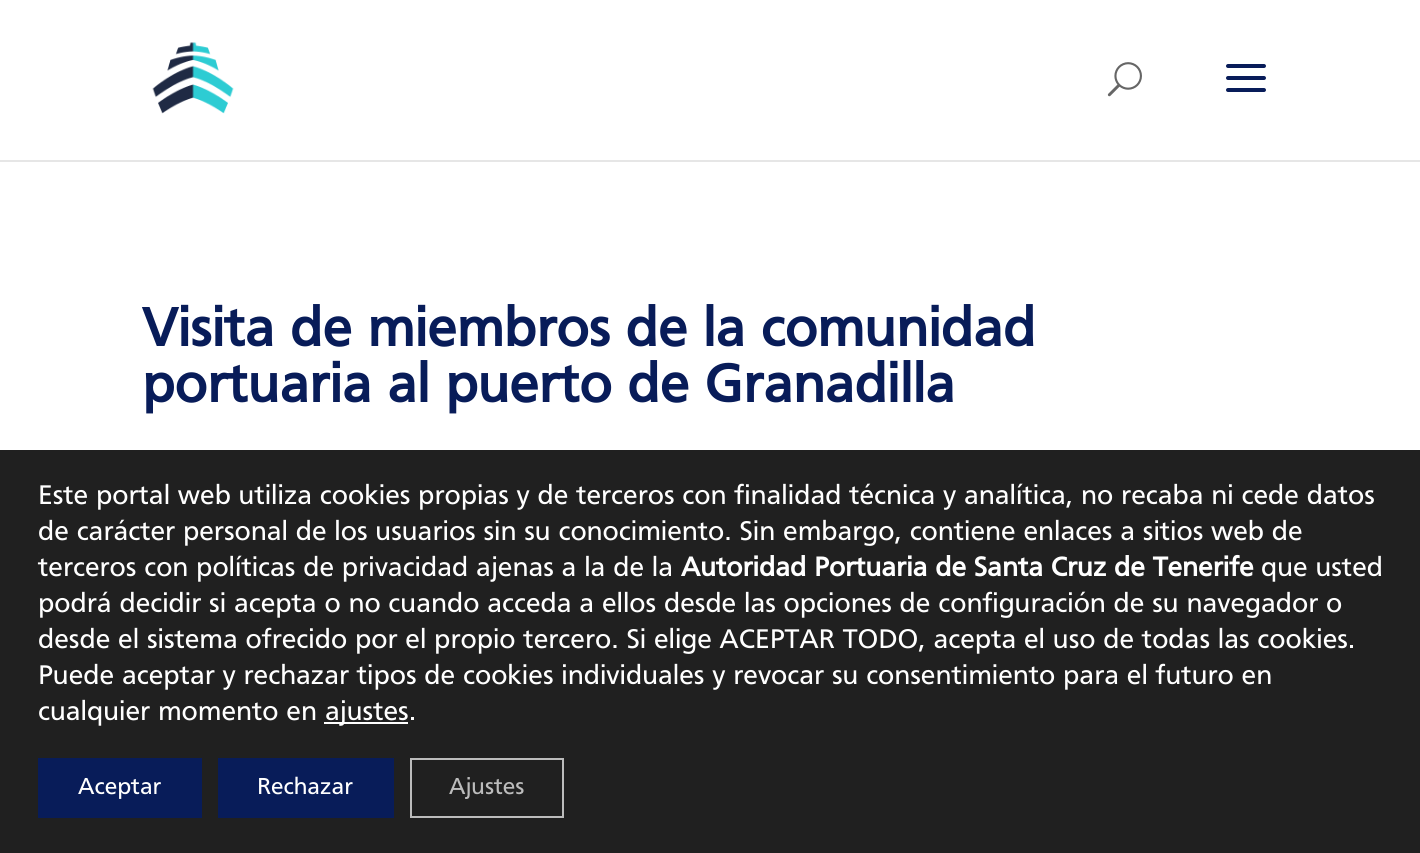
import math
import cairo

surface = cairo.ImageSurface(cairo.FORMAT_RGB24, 1420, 853)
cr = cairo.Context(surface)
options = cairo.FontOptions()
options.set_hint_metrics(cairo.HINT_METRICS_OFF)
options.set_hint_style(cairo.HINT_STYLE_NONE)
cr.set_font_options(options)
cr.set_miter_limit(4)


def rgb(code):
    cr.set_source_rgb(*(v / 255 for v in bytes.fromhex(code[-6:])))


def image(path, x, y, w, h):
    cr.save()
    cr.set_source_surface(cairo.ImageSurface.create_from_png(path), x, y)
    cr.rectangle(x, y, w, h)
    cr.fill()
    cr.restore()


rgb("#ffffff")
cr.paint()
rgb("#e6e6e6")
cr.rectangle(0, 160, 1420, 2)
cr.fill()
image("img/1.png", 152, 42, 82, 72)
image("img/2.png", 1107, 62, 35, 35)
image("img/3.png", 1226, 64, 40, 28)
for x, y, w, h, color in [
    (0, 450, 1420, 403, "#202020"),
    (324, 722, 84, 2, "#ffffff"),
    (38, 758, 164, 60, "#081c59"),
    (218, 758, 176, 60, "#081c59"),
]:
    rgb(color)
    cr.rectangle(x, y, w, h)
    cr.fill()
cr.rectangle(411, 759, 152, 58)
rgb("#bcbcbc")
cr.stroke()
cr.select_font_face("Frutiger", cairo.FONT_SLANT_NORMAL, cairo.FONT_WEIGHT_BOLD)
cr.set_font_size(56)
rgb("#081c59")
cr.move_to(142, 346)
cr.show_text("Visita de miembros de la comunidad")
cr.move_to(142, 402)
cr.show_text("portuaria al puerto de Granadilla")
cr.select_font_face("Frutiger")
cr.set_font_size(28)
rgb("#ffffff")
for x, y, s in [
    (38, 504, "Este portal web utiliza cookies propias y de terceros con finalidad técnica y analítica, no recaba ni cede datos"),
    (38, 540, "de carácter personal de los usuarios sin su conocimiento. Sin embargo, contiene enlaces a sitios web de"),
    (38, 576, "terceros con políticas de privacidad ajenas a la de la"),
]:
    cr.move_to(x, y)
    cr.show_text(s)
cr.select_font_face("Frutiger", cairo.FONT_SLANT_NORMAL, cairo.FONT_WEIGHT_BOLD)
cr.move_to(681, 576)
cr.show_text("Autoridad Portuaria de Santa Cruz de Tenerife")
cr.select_font_face("Frutiger")
for x, y, s in [
    (1261, 576, "que usted"),
    (38, 612, "podrá decidir si acepta o no cuando acceda a ellos desde las opciones de configuración de su navegador o"),
    (38, 648, "desde el sistema ofrecido por el propio tercero. Si elige ACEPTAR TODO, acepta el uso de todas las cookies."),
    (38, 684, "Puede aceptar y rechazar tipos de cookies individuales y revocar su consentimiento para el futuro en"),
    (38, 720, "cualquier momento en"),
    (325, 720, "ajustes."),
]:
    cr.move_to(x, y)
    cr.show_text(s)
cr.set_font_size(24)
cr.move_to(78, 794)
cr.show_text("Aceptar")
cr.move_to(257, 794)
cr.show_text("Rechazar")
rgb("#bcbcbc")
cr.move_to(449, 794)
cr.show_text("Ajustes")
surface.write_to_png("page.png")
